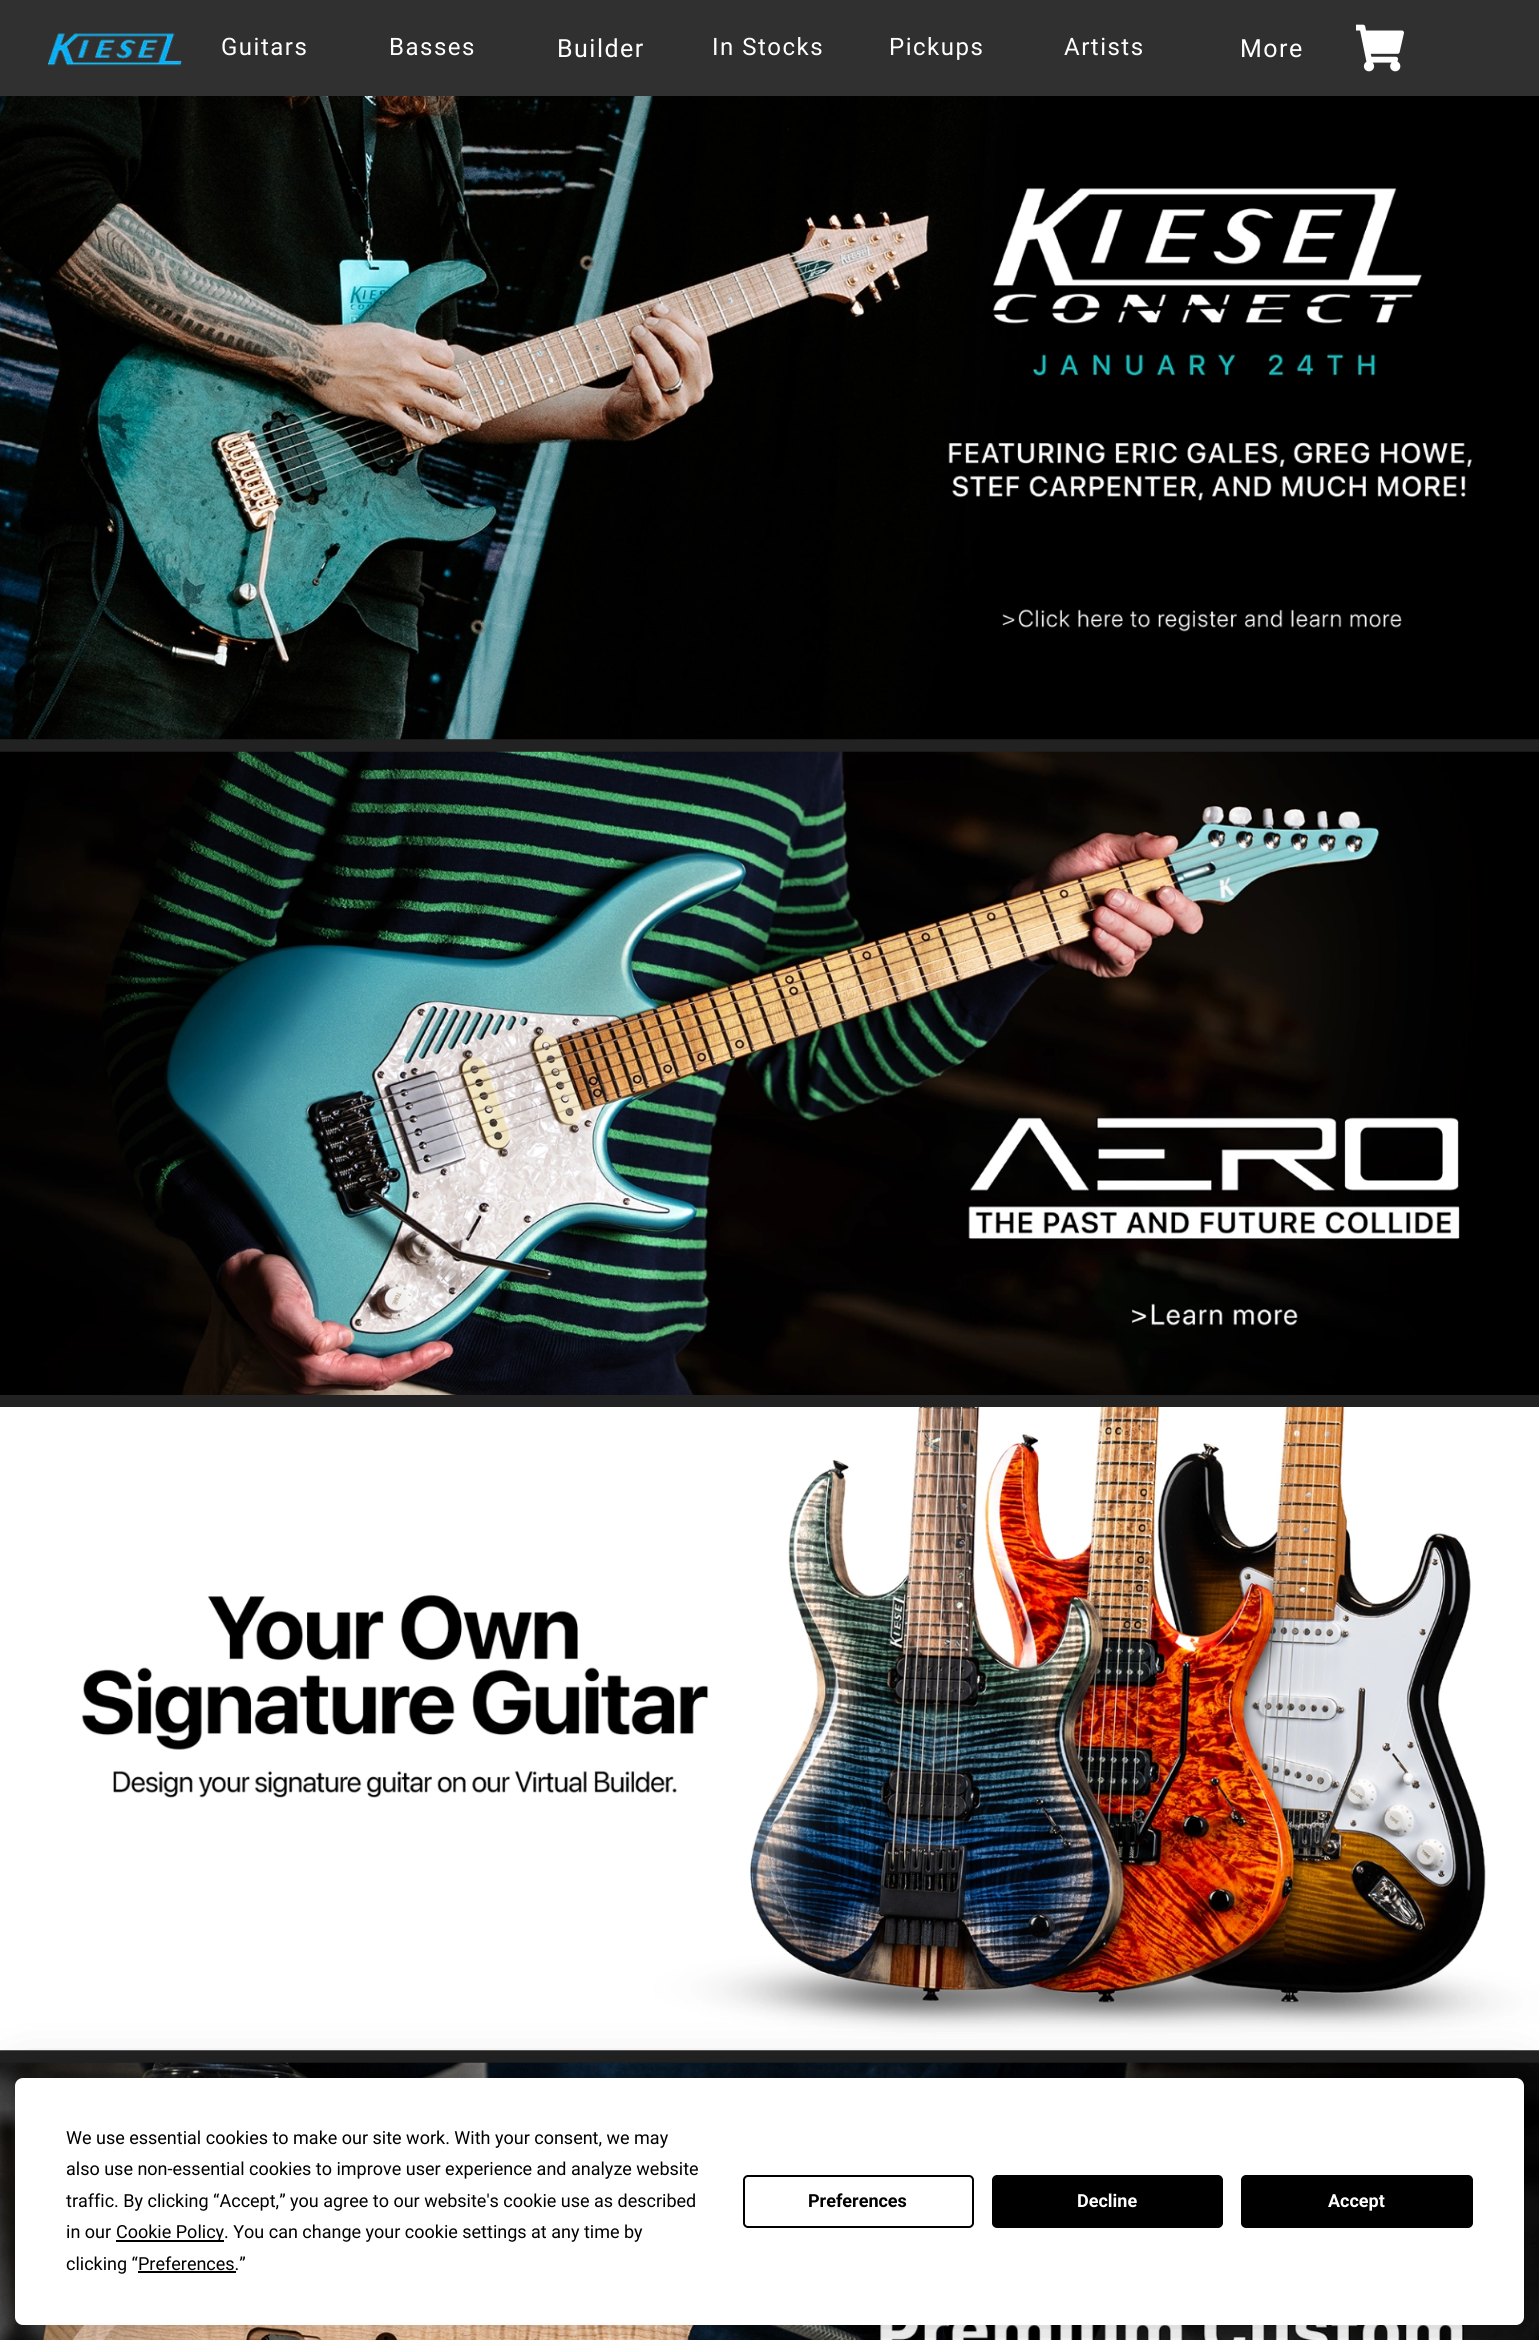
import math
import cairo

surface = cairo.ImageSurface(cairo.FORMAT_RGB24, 1539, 2340)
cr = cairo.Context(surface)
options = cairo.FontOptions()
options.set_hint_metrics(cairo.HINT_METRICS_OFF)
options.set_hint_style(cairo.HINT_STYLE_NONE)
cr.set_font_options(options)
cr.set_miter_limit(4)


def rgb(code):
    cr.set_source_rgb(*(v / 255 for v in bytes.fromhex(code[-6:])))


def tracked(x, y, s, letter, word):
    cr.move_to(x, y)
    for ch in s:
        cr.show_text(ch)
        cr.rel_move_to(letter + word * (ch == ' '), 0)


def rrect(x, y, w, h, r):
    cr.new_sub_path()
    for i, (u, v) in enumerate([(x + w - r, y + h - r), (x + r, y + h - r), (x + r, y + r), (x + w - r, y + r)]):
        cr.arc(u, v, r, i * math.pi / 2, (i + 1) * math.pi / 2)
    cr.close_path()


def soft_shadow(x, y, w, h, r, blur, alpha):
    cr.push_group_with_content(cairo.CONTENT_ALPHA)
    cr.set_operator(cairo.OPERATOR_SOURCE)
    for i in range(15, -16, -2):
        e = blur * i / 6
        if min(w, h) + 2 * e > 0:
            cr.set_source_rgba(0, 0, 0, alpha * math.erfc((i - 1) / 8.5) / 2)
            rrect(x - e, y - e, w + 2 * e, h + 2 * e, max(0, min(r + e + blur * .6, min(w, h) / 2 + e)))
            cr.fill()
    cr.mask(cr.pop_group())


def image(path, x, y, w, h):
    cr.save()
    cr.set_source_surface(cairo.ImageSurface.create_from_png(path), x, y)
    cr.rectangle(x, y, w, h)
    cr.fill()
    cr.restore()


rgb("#303030")
cr.paint()
image("img/1.png", 48, 33, 134, 33)
image("img/2.png", 1356, 24, 48, 48)
rgb("#222222")
cr.rectangle(0, 739, 1539, 1324)
cr.fill()
image("img/3.png", 0, 96, 1539, 644)
image("img/4.png", 0, 751, 1539, 644)
image("img/5.png", 0, 1407, 1539, 644)
image("img/6.png", 0, 2062, 1539, 278)
rgb("#000000")
soft_shadow(15, 2078, 1509, 247, 8, 26, 0.25)
rgb("#ffffff")
rrect(15, 2078, 1509, 247, 8)
cr.fill()
rgb("#000000")
cr.rectangle(116, 2240, 108, 2)
cr.fill()
cr.rectangle(138, 2271, 98, 2)
cr.fill()
rrect(744, 2176, 229, 51, 4)
cr.stroke()
rrect(993, 2176, 229, 51, 4)
cr.fill_preserve()
cr.stroke()
rrect(1242, 2176, 230, 51, 4)
cr.fill_preserve()
cr.stroke()
cr.select_font_face("Roboto")
cr.set_font_size(24)
rgb("#ffffff")
tracked(221, 55, "Guitars", 1.5, 0)
tracked(389, 55, "Basses", 1.5, 0)
cr.set_font_size(25)
tracked(557, 57, "Builder", 1.5, 0)
cr.set_font_size(24)
for x, y, s in [
    (712, 55, "In Stocks"),
    (889, 55, "Pickups"),
    (1064, 55, "Artists"),
]:
    tracked(x, y, s, 1.5, 0)
cr.set_font_size(25)
tracked(1240, 57, "More", 1.5, 0)
cr.set_font_size(18)
rgb("#000000")
for x, y, s in [
    (66, 2144, "We use essential cookies to make our site work. With your consent, we may"),
    (66, 2175, "also use non-essential cookies to improve user experience and analyze website"),
    (66, 2207, "traffic. By clicking “Accept,” you agree to our website's cookie use as described"),
    (66, 2238, "in our"),
    (116, 2238, "Cookie Policy. You can change your cookie settings at any time by"),
    (66, 2270, "clicking “Preferences.”"),
]:
    cr.move_to(x, y)
    cr.show_text(s)
cr.select_font_face("Roboto", cairo.FONT_SLANT_NORMAL, cairo.FONT_WEIGHT_BOLD)
cr.move_to(808, 2207)
cr.show_text("Preferences")
rgb("#ffffff")
cr.move_to(1077, 2207)
cr.show_text("Decline")
cr.move_to(1328, 2207)
cr.show_text("Accept")
surface.write_to_png("page.png")
